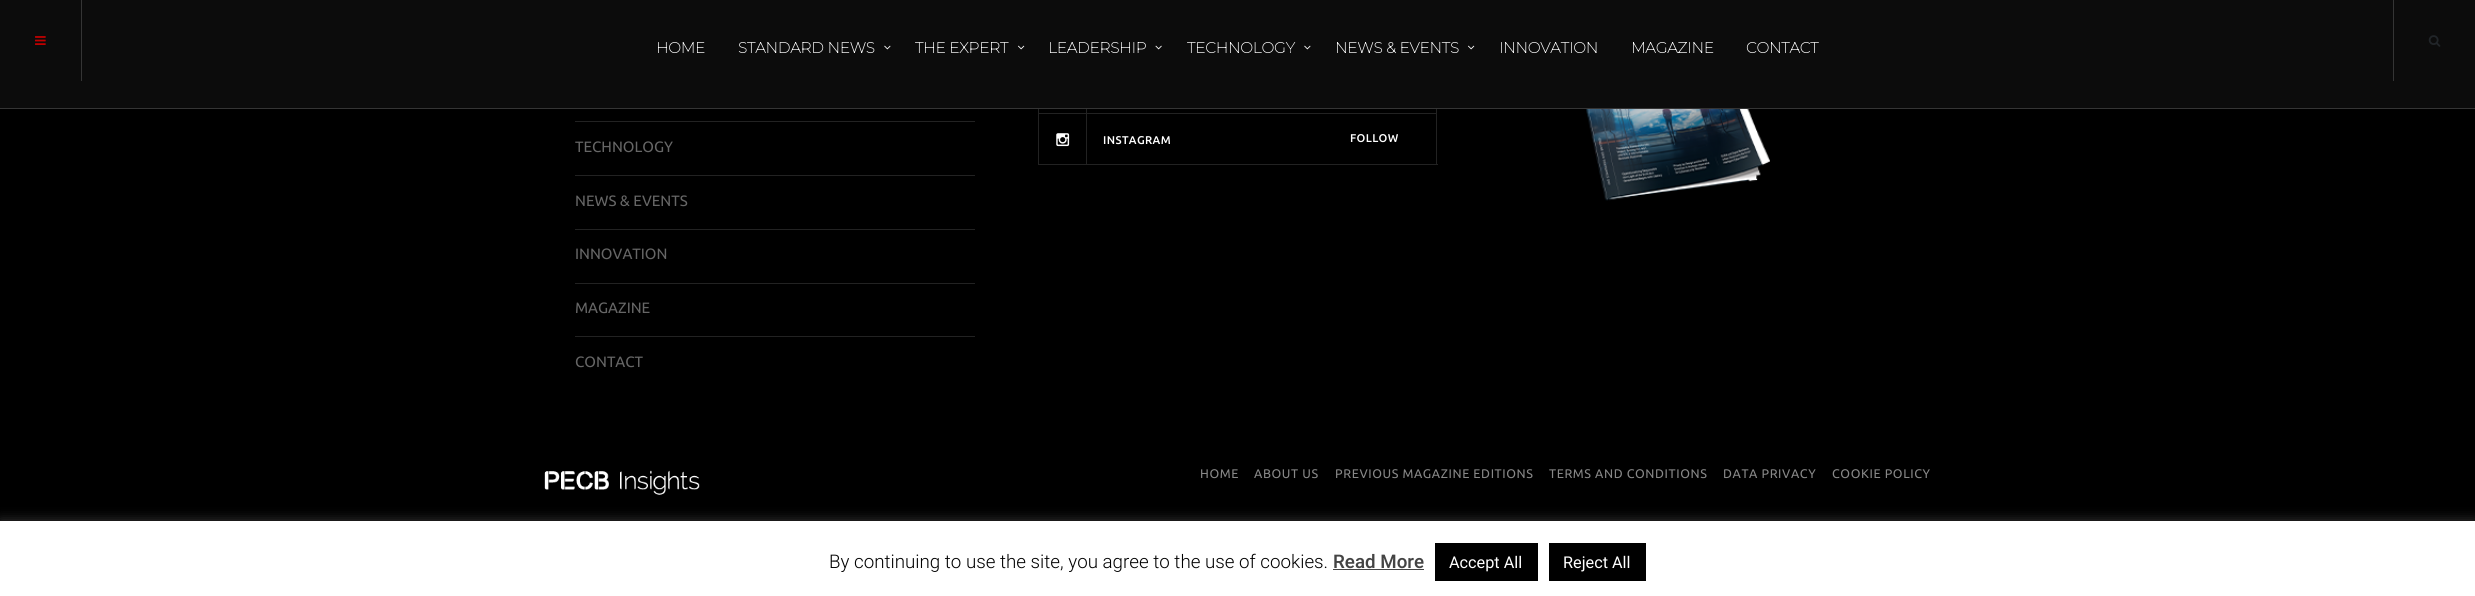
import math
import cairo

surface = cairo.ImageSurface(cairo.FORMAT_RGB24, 2475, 596)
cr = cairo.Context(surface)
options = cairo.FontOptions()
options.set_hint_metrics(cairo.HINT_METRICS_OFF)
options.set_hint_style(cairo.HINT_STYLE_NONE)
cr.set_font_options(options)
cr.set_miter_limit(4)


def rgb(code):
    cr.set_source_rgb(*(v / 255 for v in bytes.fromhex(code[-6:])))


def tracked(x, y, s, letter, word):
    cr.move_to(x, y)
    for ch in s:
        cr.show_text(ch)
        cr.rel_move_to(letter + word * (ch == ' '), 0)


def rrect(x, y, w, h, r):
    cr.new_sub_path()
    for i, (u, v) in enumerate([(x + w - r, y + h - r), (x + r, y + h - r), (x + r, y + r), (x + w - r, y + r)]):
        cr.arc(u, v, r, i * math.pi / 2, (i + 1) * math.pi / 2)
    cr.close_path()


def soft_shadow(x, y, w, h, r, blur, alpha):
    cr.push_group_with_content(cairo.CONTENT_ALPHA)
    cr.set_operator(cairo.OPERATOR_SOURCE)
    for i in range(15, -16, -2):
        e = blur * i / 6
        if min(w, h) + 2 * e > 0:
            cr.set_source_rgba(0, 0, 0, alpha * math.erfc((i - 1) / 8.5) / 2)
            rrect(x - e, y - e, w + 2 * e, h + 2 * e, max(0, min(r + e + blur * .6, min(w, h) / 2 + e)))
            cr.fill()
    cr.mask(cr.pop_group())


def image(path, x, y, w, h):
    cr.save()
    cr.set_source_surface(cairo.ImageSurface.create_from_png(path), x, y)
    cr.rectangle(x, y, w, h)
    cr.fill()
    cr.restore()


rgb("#000000")
cr.paint()
for x, y, w, h, color in [
    (0, 0, 2475, 108, "#0c0c0c"),
    (0, 108, 2475, 1, "#353535"),
    (81, 0, 1, 81, "#353535"),
]:
    rgb(color)
    cr.rectangle(x, y, w, h)
    cr.fill()
image("img/1.png", 35, 36, 11, 9)
image("img/2.png", 884, 45, 7, 5)
image("img/3.png", 1018, 45, 7, 5)
image("img/4.png", 1155, 45, 7, 5)
image("img/2.png", 1304, 45, 7, 5)
image("img/3.png", 1468, 45, 7, 5)
cr.rectangle(2393, 0, 1, 81)
cr.fill()
image("img/5.png", 2428, 35, 13, 12)
for x, y, w, h, color in [
    (1436, 109, 1, 56, "#222222"),
    (1038, 164, 400, 1, "#222222"),
    (1086, 109, 1, 4, "#222222"),
    (1038, 109, 1, 4, "#222222"),
    (1038, 113, 398, 1, "#222222"),
    (1086, 114, 1, 50, "#222222"),
    (1038, 114, 1, 50, "#222222"),
]:
    rgb(color)
    cr.rectangle(x, y, w, h)
    cr.fill()
image("img/6.png", 1056, 133, 14, 14)
image("img/7.png", 1567, 109, 203, 92)
for x, y, w, h, color in [
    (575, 121, 400, 1, "#222222"),
    (575, 175, 400, 1, "#222222"),
    (575, 229, 400, 1, "#222222"),
    (575, 283, 400, 1, "#222222"),
    (575, 336, 400, 1, "#222222"),
]:
    rgb(color)
    cr.rectangle(x, y, w, h)
    cr.fill()
image("img/8.png", 544, 470, 156, 25)
rgb("#acabab")
soft_shadow(0, 520, 2475, 75, 0, 6, 0.3)
for x, y, w, h, color in [
    (0, 521, 2475, 75, "#ffffff"),
    (1333, 569, 91, 1, "#444444"),
    (1435, 543, 103, 38, "#000000"),
    (1549, 543, 97, 38, "#000000"),
]:
    rgb(color)
    cr.rectangle(x, y, w, h)
    cr.fill()
cr.select_font_face("Montserrat", cairo.FONT_SLANT_NORMAL, cairo.FONT_WEIGHT_BOLD)
cr.set_font_size(15)
rgb("#ffffff")
for x, y, s in [
    (656, 53, "HOME"),
    (738, 53, "STANDARD NEWS"),
    (915, 53, "THE EXPERT"),
    (1048, 53, "LEADERSHIP"),
    (1187, 53, "TECHNOLOGY"),
    (1335, 53, "NEWS & EVENTS"),
    (1499, 53, "INNOVATION"),
    (1631, 53, "MAGAZINE"),
    (1746, 53, "CONTACT"),
]:
    cr.move_to(x, y)
    cr.show_text(s)
cr.select_font_face("Ubuntu Medium")
cr.set_font_size(11.25)
tracked(1103, 144, "INSTAGRAM", 0.4, 0)
tracked(1350, 142, "FOLLOW", 0.4, 0)
cr.select_font_face("Ubuntu")
cr.set_font_size(15)
rgb("#666666")
for x, y, s in [
    (575, 152, "TECHNOLOGY"),
    (575, 206, "NEWS & EVENTS"),
    (575, 259, "INNOVATION"),
    (575, 313, "MAGAZINE"),
    (575, 367, "CONTACT"),
]:
    cr.move_to(x, y)
    cr.show_text(s)
cr.set_font_size(12.5)
rgb("#888888")
for x, y, s in [
    (1200, 478, "HOME"),
    (1254, 478, "ABOUT US"),
    (1335, 478, "PREVIOUS MAGAZINE EDITIONS"),
    (1549, 478, "TERMS AND CONDITIONS"),
    (1723, 478, "DATA PRIVACY"),
    (1832, 478, "COOKIE POLICY"),
]:
    tracked(x, y, s, 0.6, 0)
cr.select_font_face("Roboto Light")
cr.set_font_size(18.75)
rgb("#000000")
cr.move_to(829, 568)
cr.show_text("By continuing to use the site, you agree to the use of cookies.")
cr.select_font_face("Roboto Medium")
rgb("#444444")
cr.move_to(1333, 568)
cr.show_text("Read More")
cr.select_font_face("Roboto")
cr.set_font_size(16.25)
rgb("#ffffff")
cr.move_to(1449, 568)
cr.show_text("Accept All")
cr.move_to(1563, 568)
cr.show_text("Reject All")
surface.write_to_png("page.png")
